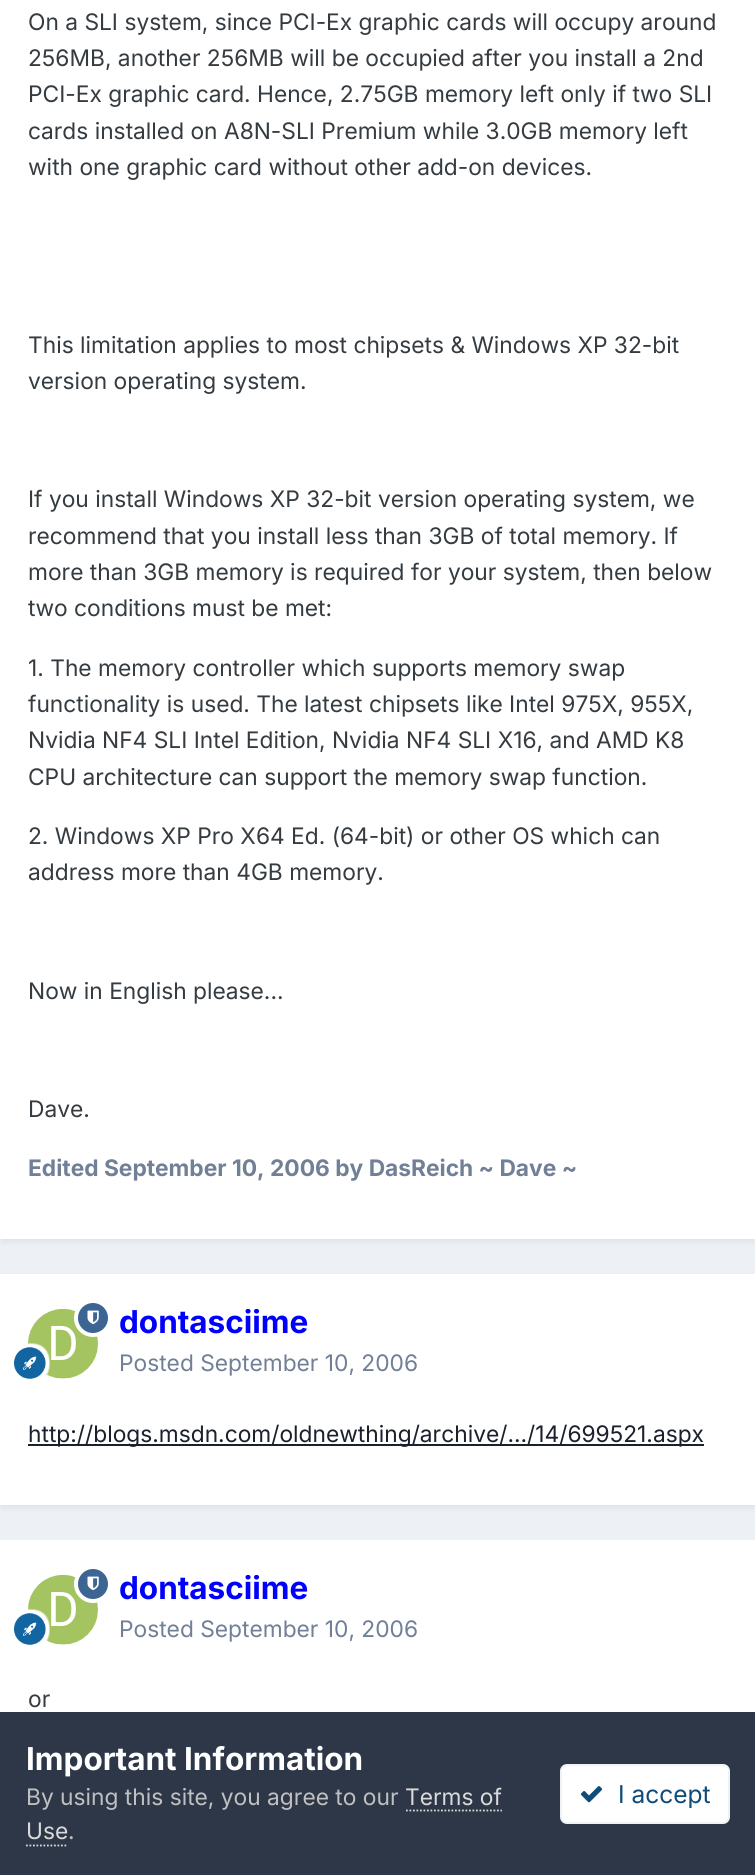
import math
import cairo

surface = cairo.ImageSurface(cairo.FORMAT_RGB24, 755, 1875)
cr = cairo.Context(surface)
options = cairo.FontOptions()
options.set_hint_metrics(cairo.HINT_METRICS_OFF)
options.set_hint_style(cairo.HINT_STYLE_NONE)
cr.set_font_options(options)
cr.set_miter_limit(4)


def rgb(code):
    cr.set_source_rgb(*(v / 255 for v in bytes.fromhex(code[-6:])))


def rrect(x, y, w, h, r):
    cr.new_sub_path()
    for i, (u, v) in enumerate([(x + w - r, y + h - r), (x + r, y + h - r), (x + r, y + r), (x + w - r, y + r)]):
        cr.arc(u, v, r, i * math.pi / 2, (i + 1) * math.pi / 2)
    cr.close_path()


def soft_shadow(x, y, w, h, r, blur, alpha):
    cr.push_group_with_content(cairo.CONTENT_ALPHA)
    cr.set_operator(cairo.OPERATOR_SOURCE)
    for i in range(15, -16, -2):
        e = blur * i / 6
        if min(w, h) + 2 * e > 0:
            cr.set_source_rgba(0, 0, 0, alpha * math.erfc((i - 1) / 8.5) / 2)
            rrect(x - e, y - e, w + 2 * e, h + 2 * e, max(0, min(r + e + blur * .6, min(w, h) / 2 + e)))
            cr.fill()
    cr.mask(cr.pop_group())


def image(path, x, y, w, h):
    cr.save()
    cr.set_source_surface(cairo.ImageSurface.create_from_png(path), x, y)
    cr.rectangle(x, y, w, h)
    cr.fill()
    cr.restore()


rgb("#edf0f4")
cr.paint()
rgb("#2d3748")
soft_shadow(2, -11, 752, 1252, 0, 3.5, 0.1)
rgb("#ffffff")
cr.rectangle(0, 0, 755, 1239)
cr.fill()
rgb("#2d3748")
soft_shadow(2, 1279, 752, 228, 0, 3.5, 0.1)
rgb("#ffffff")
cr.rectangle(0, 1274, 755, 231)
cr.fill()
image("img/2.png", 28, 1309, 70, 70)
rgb("#3d6594")
cr.arc(93, 1318, 17, 0, 2 * math.pi)
cr.fill_preserve()
rgb("#ffffff")
cr.set_line_width(4)
cr.stroke()
image("img/1.png", 87, 1310, 12, 15)
image("img/3.png", 14, 1343, 36, 36)
rgb("#1a202c")
cr.rectangle(28, 1444, 676, 2)
cr.fill()
rgb("#ffffff")
cr.rectangle(0, 1540, 755, 172)
cr.fill()
image("img/2.png", 28, 1575, 70, 70)
rgb("#3d6594")
cr.arc(93, 1584, 17, 0, 2 * math.pi)
cr.fill_preserve()
rgb("#ffffff")
cr.stroke()
image("img/1.png", 87, 1576, 12, 15)
image("img/3.png", 14, 1609, 36, 36)
rgb("#2d3748")
cr.rectangle(0, 1712, 755, 163)
cr.fill()
cr.new_path()
cr.move_to(406, 1810.5)
cr.line_to(502, 1810.5)
rgb("#dadada")
cr.set_line_width(1.8)
cr.set_dash([1.75, 1.75])
cr.stroke()
cr.new_path()
cr.move_to(26, 1845.5)
cr.line_to(68, 1845.5)
cr.stroke()
rgb("#ffffff")
rrect(560, 1764, 170, 60, 7)
cr.fill()
rrect(561, 1765, 168, 58, 6)
cr.set_source_rgba(0.055, 0.298, 0.475, 0.07)
cr.set_line_width(2)
cr.set_dash([])
cr.stroke()
image("img/4.png", 580, 1786, 23, 17)
cr.select_font_face("Inter")
cr.set_font_size(22.75)
rgb("#353c41")
for x, y, s in [
    (28, 30, "On a SLI system, since PCI-Ex graphic cards will occupy around"),
    (28, 66, "256MB, another 256MB will be occupied after you install a 2nd"),
    (28, 102, "PCI-Ex graphic card. Hence, 2.75GB memory left only if two SLI"),
    (28, 139, "cards installed on A8N-SLI Premium while 3.0GB memory left"),
    (28, 175, "with one graphic card without other add-on devices."),
    (28, 353, "This limitation applies to most chipsets & Windows XP 32-bit"),
    (28, 389, "version operating system."),
    (28, 507, "If you install Windows XP 32-bit version operating system, we"),
    (28, 544, "recommend that you install less than 3GB of total memory. If"),
    (28, 580, "more than 3GB memory is required for your system, then below"),
    (28, 616, "two conditions must be met:"),
    (28, 676, "1. The memory controller which supports memory swap"),
    (28, 712, "functionality is used. The latest chipsets like Intel 975X, 955X,"),
    (28, 748, "Nvidia NF4 SLI Intel Edition, Nvidia NF4 SLI X16, and AMD K8"),
    (28, 785, "CPU architecture can support the memory swap function."),
    (28, 844, "2. Windows XP Pro X64 Ed. (64-bit) or other OS which can"),
    (28, 880, "address more than 4GB memory."),
    (28, 999, "Now in English please..."),
    (28, 1117, "Dave."),
]:
    cr.move_to(x, y)
    cr.show_text(s)
cr.select_font_face("Inter", cairo.FONT_SLANT_NORMAL, cairo.FONT_WEIGHT_BOLD)
rgb("#718096")
cr.move_to(28, 1176)
cr.show_text("Edited September 10, 2006 by DasReich ~ Dave ~")
cr.save()
cr.rectangle(119, 1309, 189, 28)
cr.clip()
cr.set_font_size(31.5)
rgb("#0000ff")
cr.move_to(119, 1333)
cr.show_text("dontasciime")
cr.restore()
cr.select_font_face("Inter")
cr.move_to(119, 1371)
cr.show_text("Posted September 10, 2006")
rgb("#1a202c")
cr.move_to(28, 1442)
cr.show_text("http://blogs.msdn.com/oldnewthing/archive/.../14/699521.aspx")
cr.save()
cr.rectangle(119, 1575, 189, 28)
cr.clip()
cr.select_font_face("Inter", cairo.FONT_SLANT_NORMAL, cairo.FONT_WEIGHT_BOLD)
cr.set_font_size(31.5)
rgb("#0000ff")
cr.move_to(119, 1599)
cr.show_text("dontasciime")
cr.restore()
rgb("#718096")
cr.move_to(119, 1637)
cr.show_text("Posted September 10, 2006")
rgb("#353c41")
cr.move_to(28, 1707)
cr.show_text("or")
cr.select_font_face("Inter", cairo.FONT_SLANT_NORMAL, cairo.FONT_WEIGHT_BOLD)
cr.set_font_size(31.5)
rgb("#ffffff")
cr.move_to(26, 1770)
cr.show_text("Important Information")
cr.select_font_face("Inter")
cr.set_font_size(22.75)
rgb("#c0c0c0")
cr.move_to(26, 1805)
cr.show_text("By using this site, you agree to our")
rgb("#dadada")
cr.move_to(405, 1805)
cr.show_text("Terms of")
cr.move_to(26, 1839)
cr.show_text("Use")
rgb("#c0c0c0")
cr.move_to(68, 1839)
cr.show_text(".")
cr.set_font_size(24.5)
rgb("#0e4c79")
cr.move_to(618, 1803)
cr.show_text("I accept")
surface.write_to_png("page.png")
